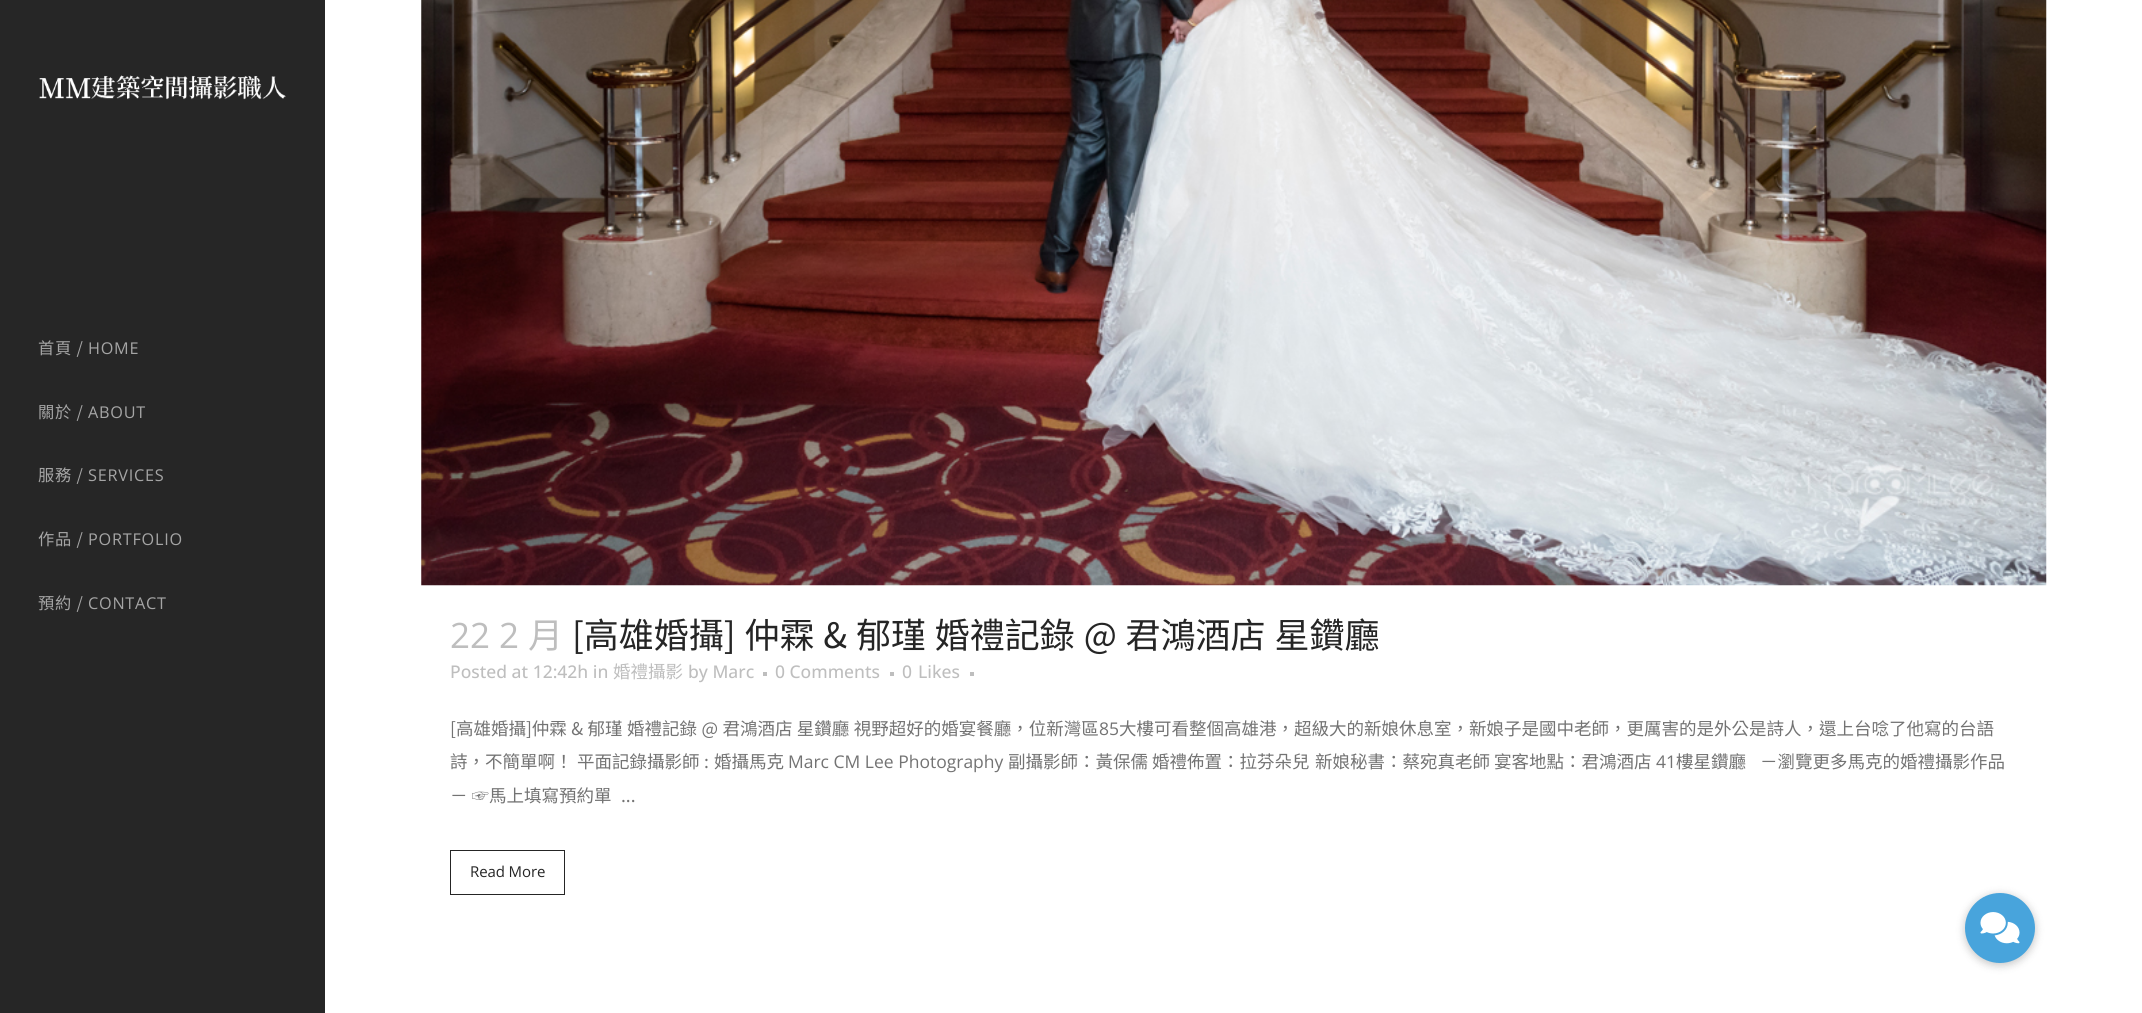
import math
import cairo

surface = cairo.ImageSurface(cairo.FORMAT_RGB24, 2142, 1013)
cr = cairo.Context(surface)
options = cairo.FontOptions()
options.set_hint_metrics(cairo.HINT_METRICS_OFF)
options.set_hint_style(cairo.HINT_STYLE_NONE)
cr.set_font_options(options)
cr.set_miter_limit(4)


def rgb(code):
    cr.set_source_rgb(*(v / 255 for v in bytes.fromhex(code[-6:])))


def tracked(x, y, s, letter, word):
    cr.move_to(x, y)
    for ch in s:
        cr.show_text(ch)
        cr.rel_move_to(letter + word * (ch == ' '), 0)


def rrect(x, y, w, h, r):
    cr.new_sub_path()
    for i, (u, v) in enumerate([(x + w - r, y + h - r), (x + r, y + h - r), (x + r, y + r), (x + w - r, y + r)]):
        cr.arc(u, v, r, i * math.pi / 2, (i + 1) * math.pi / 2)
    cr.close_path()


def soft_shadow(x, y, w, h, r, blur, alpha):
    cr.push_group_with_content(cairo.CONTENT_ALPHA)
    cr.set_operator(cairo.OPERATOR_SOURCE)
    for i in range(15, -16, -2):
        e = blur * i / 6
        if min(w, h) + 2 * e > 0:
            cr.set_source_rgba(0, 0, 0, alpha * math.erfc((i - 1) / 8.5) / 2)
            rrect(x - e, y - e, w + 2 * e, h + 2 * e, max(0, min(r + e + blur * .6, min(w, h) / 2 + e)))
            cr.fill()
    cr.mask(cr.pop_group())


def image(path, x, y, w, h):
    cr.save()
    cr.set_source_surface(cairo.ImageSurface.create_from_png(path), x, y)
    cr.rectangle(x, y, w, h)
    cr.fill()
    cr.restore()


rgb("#ffffff")
cr.paint()
rgb("#262626")
cr.rectangle(0, 0, 325, 1013)
cr.fill()
image("img/1.png", 39, 75, 247, 25)
image("img/2.png", 421, 0, 1626, 586)
for x, y, w, h, color in [
    (763, 672, 4, 4, "#bebebe"),
    (890, 672, 4, 4, "#bebebe"),
    (970, 672, 4, 4, "#bebebe"),
]:
    rgb(color)
    cr.rectangle(x, y, w, h)
    cr.fill()
cr.rectangle(450.5, 850.5, 114, 44)
rgb("#252525")
cr.set_line_width(1)
cr.stroke()
rgb("#000000")
soft_shadow(1964, 894, 72, 72, 36, 4, 0.2)
rgb("#48a4dc")
cr.arc(2000, 928, 35, 0, 2 * math.pi)
cr.fill()
image("img/3.png", 1980, 912, 40, 32)
cr.select_font_face("Noto Sans CJK TC")
cr.set_font_size(16.25)
rgb("#a5a5a5")
tracked(38, 354, "首頁 /", 0.75, 0)
cr.select_font_face("Open Sans")
tracked(88, 354, "HOME", 0.75, 0)
cr.select_font_face("Noto Sans CJK TC")
tracked(38, 418, "關於 /", 0.75, 0)
cr.select_font_face("Open Sans")
tracked(88, 418, "ABOUT", 0.75, 0)
cr.select_font_face("Noto Sans CJK TC")
tracked(38, 481, "服務 /", 0.75, 0)
cr.select_font_face("Open Sans")
tracked(88, 481, "SERVICES", 0.75, 0)
cr.select_font_face("Noto Sans CJK TC")
tracked(38, 545, "作品 /", 0.75, 0)
cr.select_font_face("Open Sans")
tracked(88, 545, "PORTFOLIO", 0.75, 0)
cr.select_font_face("Noto Sans CJK TC")
tracked(38, 609, "預約 /", 0.75, 0)
cr.select_font_face("Open Sans")
tracked(88, 609, "CONTACT", 0.75, 0)
cr.set_font_size(35)
rgb("#bebebe")
cr.move_to(450, 648)
cr.show_text("22 2")
cr.select_font_face("Noto Sans CJK TC")
cr.move_to(528, 648)
cr.show_text("月")
rgb("#252525")
tracked(572, 648, "[高雄婚攝] 仲霖 & 郁瑾 婚禮記錄 @ 君鴻酒店 星鑽廳", 0, 1)
cr.select_font_face("Open Sans Medium")
cr.set_font_size(17.5)
rgb("#bebebe")
cr.move_to(450, 678)
cr.show_text("Posted at 12:42h in")
cr.select_font_face("Noto Sans CJK TC")
cr.move_to(613, 678)
cr.show_text("婚禮攝影")
cr.select_font_face("Open Sans Medium")
for x, y, s in [
    (688, 678, "by Marc"),
    (775, 678, "0 Comments"),
    (902, 678, "0"),
    (918, 678, "Likes"),
]:
    cr.move_to(x, y)
    cr.show_text(s)
cr.select_font_face("Noto Sans CJK TC")
rgb("#737373")
tracked(450, 735, "[高雄婚攝]仲霖 & 郁瑾 婚禮記錄 @ 君鴻酒店 星鑽廳 視野超好的婚宴餐廳，位新灣區", 0, 0.5)
cr.select_font_face("Open Sans")
cr.move_to(1099, 735)
cr.show_text("85")
cr.select_font_face("Noto Sans CJK TC")
for x, y, s in [
    (1119, 735, "大樓可看整個高雄港，超級大的新娘休息室，新娘子是國中老師，更厲害的是外公是詩人，還上台唸了他寫的台語"),
    (450, 768, "詩，不簡單啊！"),
    (577, 768, "平面記錄攝影師"),
    (704, 768, ":"),
    (714, 768, "婚攝馬克"),
]:
    cr.move_to(x, y)
    cr.show_text(s)
cr.select_font_face("Open Sans")
cr.move_to(788, 768)
cr.show_text("Marc CM Lee Photography")
cr.select_font_face("Noto Sans CJK TC")
for x, y, s in [
    (1008, 768, "副攝影師：黃保儒"),
    (1152, 768, "婚禮佈置：拉芬朵兒"),
    (1315, 768, "新娘秘書：蔡宛真老師"),
    (1494, 768, "宴客地點：君鴻酒店"),
]:
    cr.move_to(x, y)
    cr.show_text(s)
cr.select_font_face("Open Sans")
cr.move_to(1656, 768)
cr.show_text("41")
cr.select_font_face("Noto Sans CJK TC")
for x, y, s in [
    (1676, 768, "樓星鑽廳"),
    (1760, 768, "－瀏覽更多馬克的婚禮攝影作品"),
    (450, 802, "－ ☞馬上填寫預約單"),
    (621, 802, "..."),
]:
    cr.move_to(x, y)
    cr.show_text(s)
cr.select_font_face("Open Sans")
cr.set_font_size(15)
rgb("#252525")
tracked(470, 877, "Read More", -0.1, 0)
surface.write_to_png("page.png")
